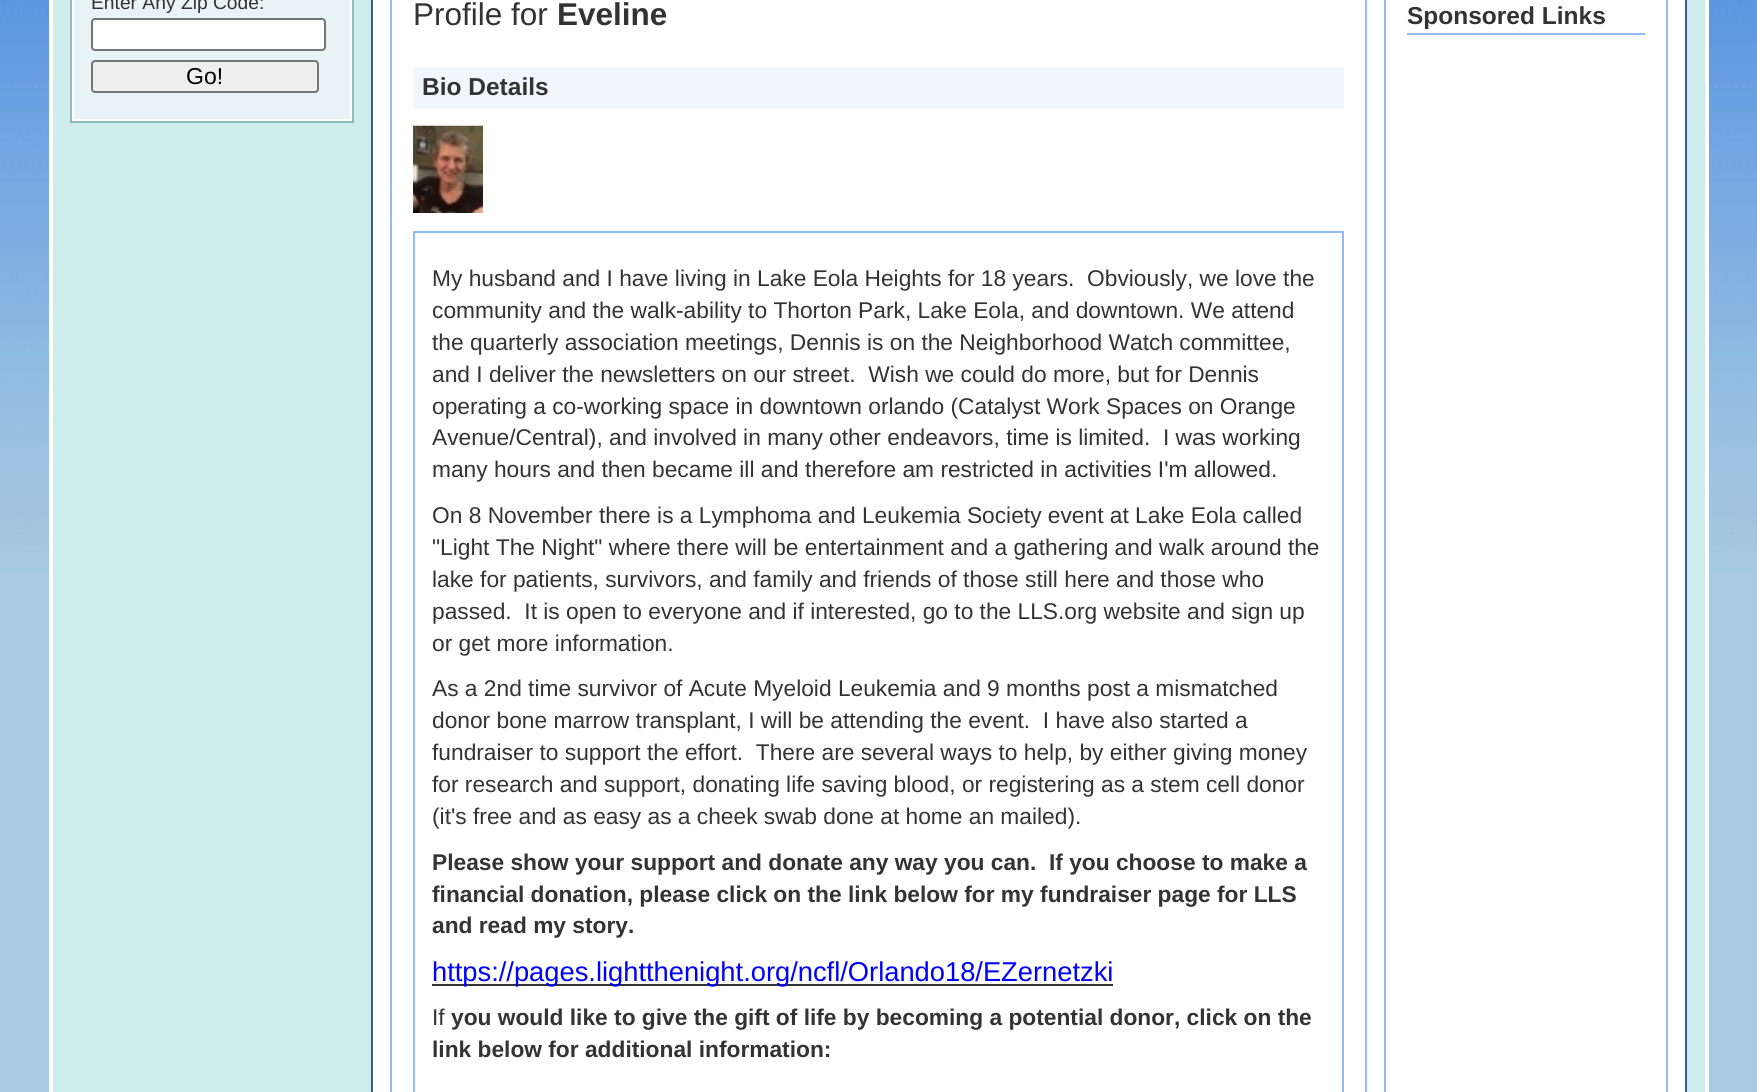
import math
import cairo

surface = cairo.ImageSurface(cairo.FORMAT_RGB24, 1757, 1092)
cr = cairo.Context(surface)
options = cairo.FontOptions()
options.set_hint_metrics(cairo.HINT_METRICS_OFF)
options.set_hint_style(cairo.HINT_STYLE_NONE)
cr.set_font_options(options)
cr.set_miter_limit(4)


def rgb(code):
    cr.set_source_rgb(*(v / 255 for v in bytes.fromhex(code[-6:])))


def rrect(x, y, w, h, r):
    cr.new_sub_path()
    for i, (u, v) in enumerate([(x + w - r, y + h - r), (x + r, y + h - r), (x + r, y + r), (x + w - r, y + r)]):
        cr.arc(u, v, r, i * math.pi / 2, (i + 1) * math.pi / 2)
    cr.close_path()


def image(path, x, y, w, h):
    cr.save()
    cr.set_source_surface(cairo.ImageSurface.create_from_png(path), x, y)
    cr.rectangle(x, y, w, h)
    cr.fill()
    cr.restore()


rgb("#a8cbe2")
cr.paint()
image("img/1.png", 0, 0, 1757, 573)
for x, y, w, h, color in [
    (53, 0, 1652, 1092, "#ceecec"),
    (1705, 0, 4, 1092, "#ffffff"),
    (49, 0, 4, 1092, "#ffffff"),
    (74, 0, 276, 119, "#e7f3f4"),
]:
    rgb(color)
    cr.rectangle(x, y, w, h)
    cr.fill()
cr.rectangle(71, -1, 282, 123)
rgb("#91baba")
cr.stroke()
cr.rectangle(73, -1, 278, 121)
rgb("#ffffff")
cr.stroke()
rrect(92, 19, 233, 31, 3)
cr.fill_preserve()
rgb("#767676")
cr.stroke()
rgb("#efefef")
rrect(92, 61, 226, 31, 3)
cr.fill_preserve()
rgb("#767676")
cr.stroke()
rgb("#ffffff")
cr.rectangle(372, -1, 1314, 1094)
cr.fill_preserve()
rgb("#3e598f")
cr.stroke()
cr.rectangle(391, -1, 975, 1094)
rgb("#96b8fc")
cr.stroke()
rgb("#f2f6fa")
cr.rectangle(413, 67, 931, 42)
cr.fill()
image("img/2.png", 413, 125, 70, 88)
cr.rectangle(414, 232, 929, 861)
rgb("#96b8fc")
cr.stroke()
rgb("#333333")
cr.rectangle(432, 984, 681, 2)
cr.fill()
cr.rectangle(1385, -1, 282, 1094)
rgb("#96b8fc")
cr.stroke()
cr.rectangle(1407, 33, 238, 2)
cr.fill()
cr.select_font_face("Liberation Sans")
cr.set_font_size(19.25)
rgb("#333333")
cr.move_to(91, 9)
cr.show_text("Enter Any Zip Code:")
cr.set_font_size(23)
rgb("#000000")
cr.move_to(186, 84)
cr.show_text("Go!")
cr.set_font_size(31.5)
rgb("#333333")
cr.move_to(413, 25)
cr.show_text("Profile for")
cr.select_font_face("Liberation Sans", cairo.FONT_SLANT_NORMAL, cairo.FONT_WEIGHT_BOLD)
cr.move_to(557, 25)
cr.show_text("Eveline")
cr.set_font_size(24.5)
cr.move_to(422, 95)
cr.show_text("Bio Details")
cr.select_font_face("Liberation Sans")
cr.set_font_size(22.75)
for x, y, s in [
    (432, 286, "My husband and I have living in Lake Eola Heights for 18 years.  Obviously, we love the"),
    (432, 318, "community and the walk-ability to Thorton Park, Lake Eola, and downtown. We attend"),
    (432, 350, "the quarterly association meetings, Dennis is on the Neighborhood Watch committee,"),
    (432, 382, "and I deliver the newsletters on our street.  Wish we could do more, but for Dennis"),
    (432, 414, "operating a co-working space in downtown orlando (Catalyst Work Spaces on Orange"),
    (432, 445, "Avenue/Central), and involved in many other endeavors, time is limited.  I was working"),
    (432, 477, "many hours and then became ill and therefore am restricted in activities I'm allowed."),
    (432, 523, "On 8 November there is a Lymphoma and Leukemia Society event at Lake Eola called"),
    (432, 555, "\"Light The Night\" where there will be entertainment and a gathering and walk around the"),
    (432, 587, "lake for patients, survivors, and family and friends of those still here and those who"),
    (432, 619, "passed.  It is open to everyone and if interested, go to the LLS.org website and sign up"),
    (432, 651, "or get more information."),
    (432, 696, "As a 2nd time survivor of Acute Myeloid Leukemia and 9 months post a mismatched"),
    (432, 728, "donor bone marrow transplant, I will be attending the event.  I have also started a"),
    (432, 760, "fundraiser to support the effort.  There are several ways to help, by either giving money"),
    (432, 792, "for research and support, donating life saving blood, or registering as a stem cell donor"),
    (432, 824, "(it's free and as easy as a cheek swab done at home an mailed)."),
]:
    cr.move_to(x, y)
    cr.show_text(s)
cr.select_font_face("Liberation Sans", cairo.FONT_SLANT_NORMAL, cairo.FONT_WEIGHT_BOLD)
for x, y, s in [
    (432, 870, "Please show your support and donate any way you can.  If you choose to make a"),
    (432, 902, "financial donation, please click on the link below for my fundraiser page for LLS"),
    (432, 933, "and read my story."),
]:
    cr.move_to(x, y)
    cr.show_text(s)
cr.select_font_face("Liberation Sans")
cr.set_font_size(27.3)
rgb("#0000ff")
cr.move_to(432, 981)
cr.show_text("https://pages.lightthenight.org/ncfl/Orlando18/EZernetzki")
cr.set_font_size(22.75)
rgb("#333333")
cr.move_to(432, 1025)
cr.show_text("If")
cr.select_font_face("Liberation Sans", cairo.FONT_SLANT_NORMAL, cairo.FONT_WEIGHT_BOLD)
cr.move_to(451, 1025)
cr.show_text("you would like to give the gift of life by becoming a potential donor, click on the")
cr.move_to(432, 1057)
cr.show_text("link below for additional information:")
cr.set_font_size(24.5)
cr.move_to(1407, 24)
cr.show_text("Sponsored Links")
surface.write_to_png("page.png")
